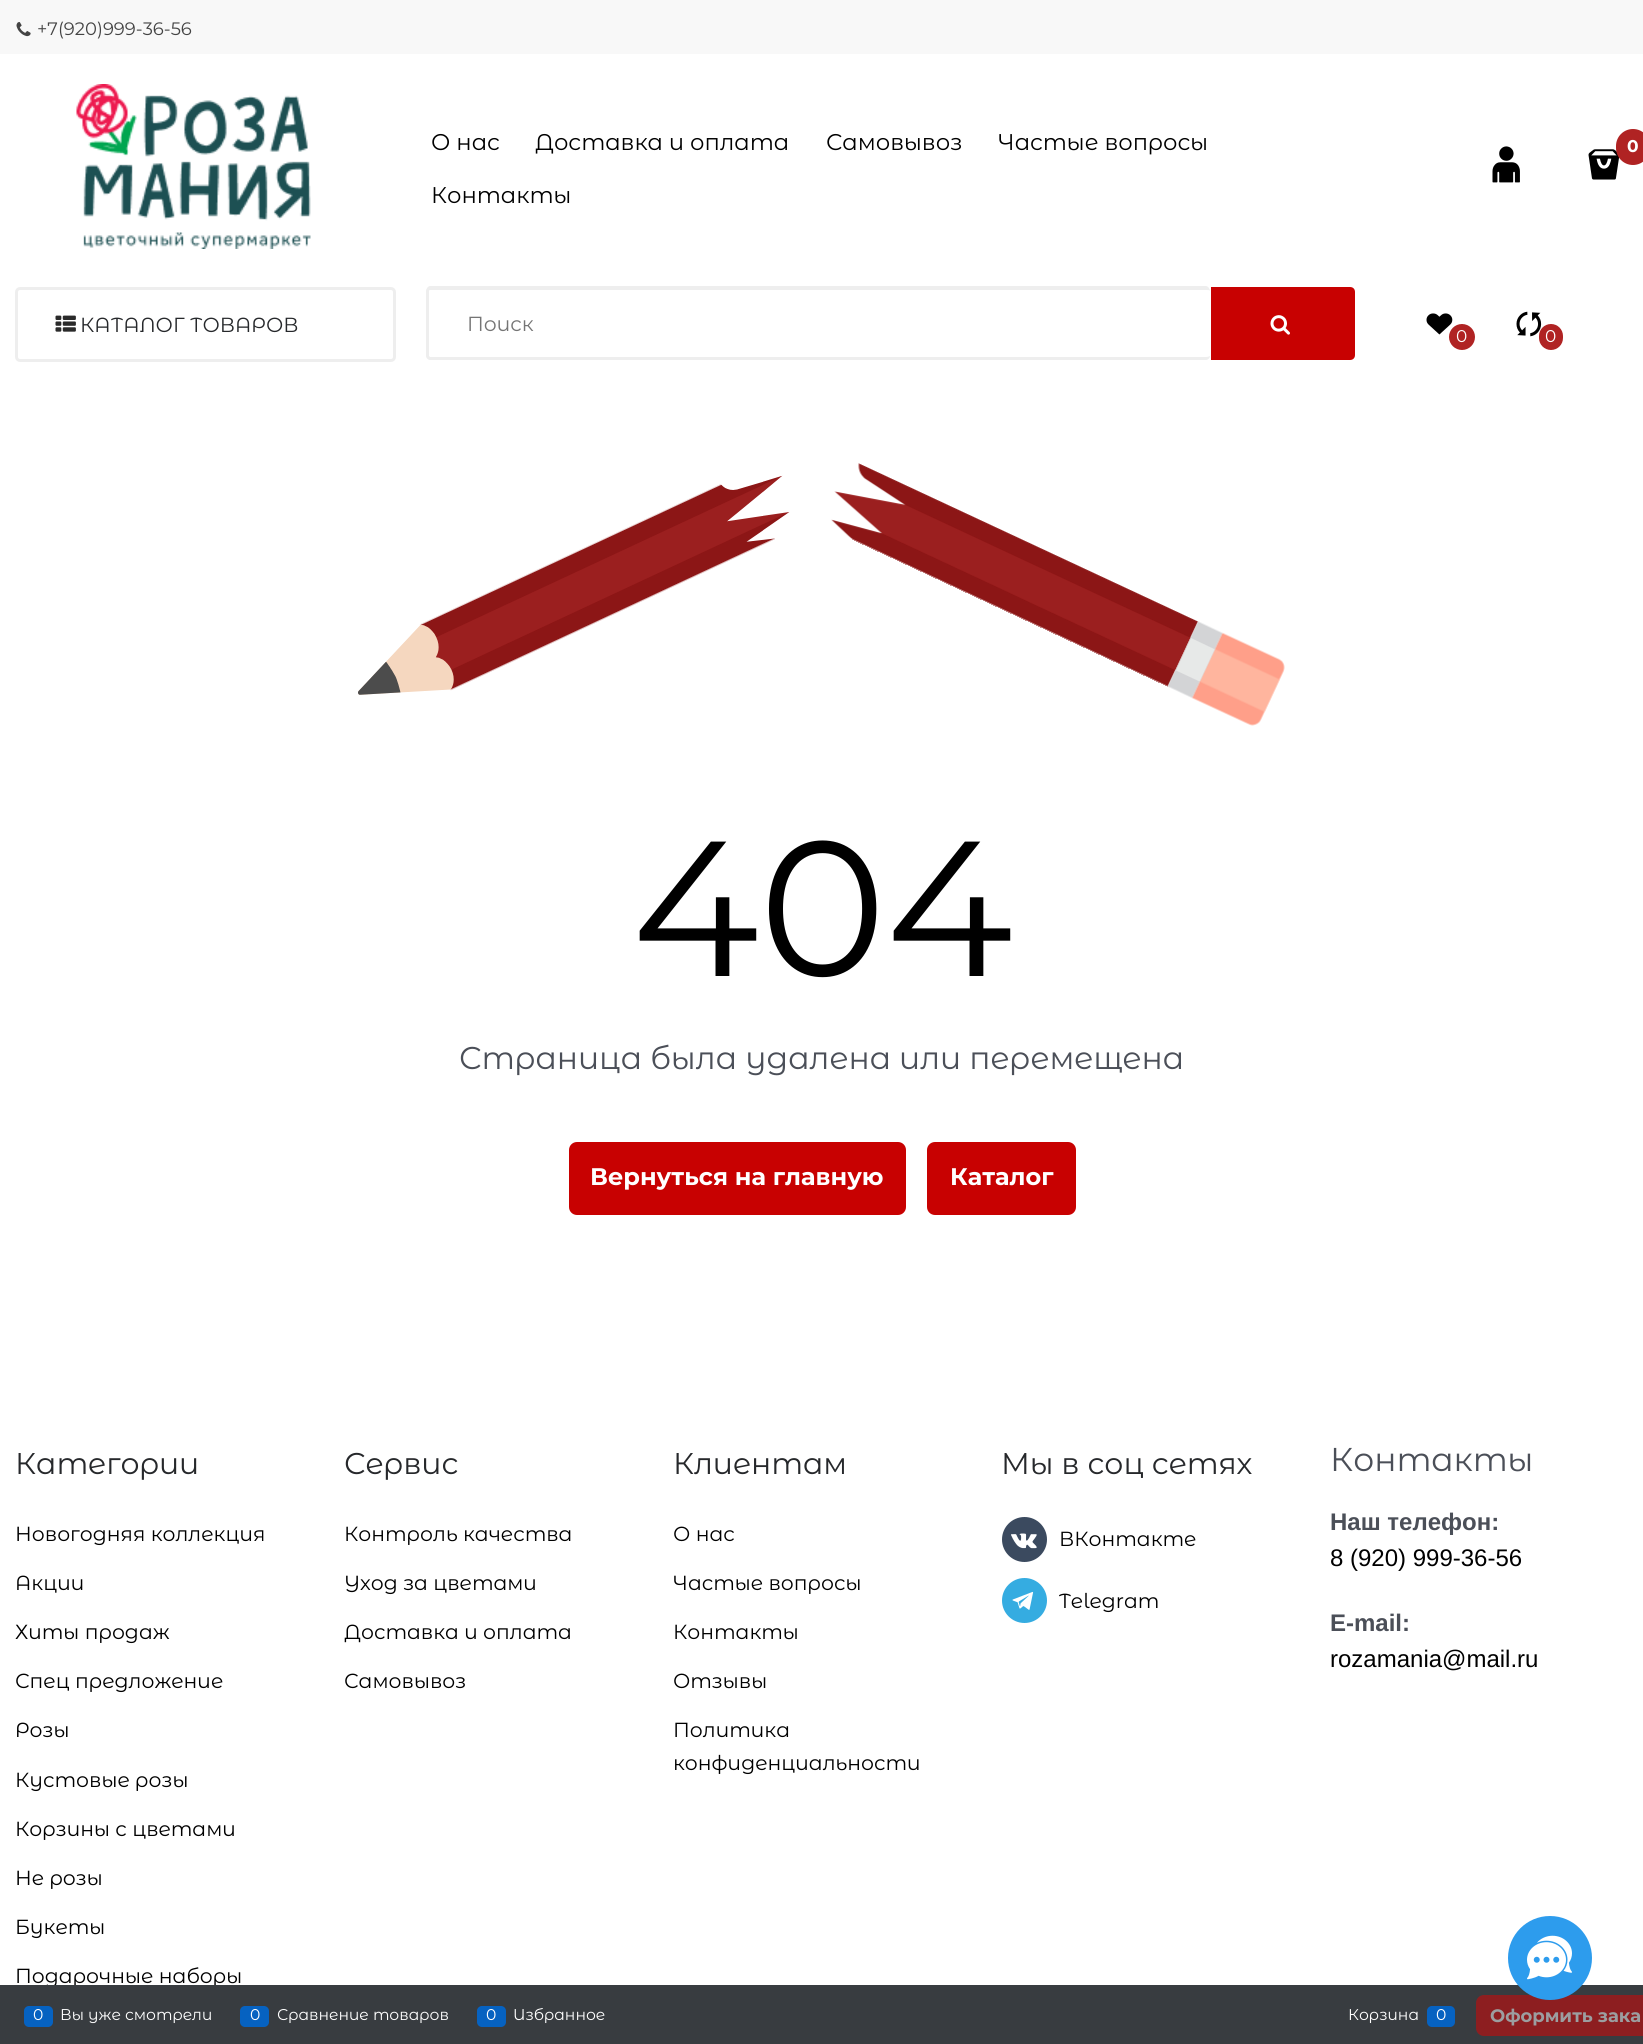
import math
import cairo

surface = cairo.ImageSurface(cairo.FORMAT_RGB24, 1643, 2044)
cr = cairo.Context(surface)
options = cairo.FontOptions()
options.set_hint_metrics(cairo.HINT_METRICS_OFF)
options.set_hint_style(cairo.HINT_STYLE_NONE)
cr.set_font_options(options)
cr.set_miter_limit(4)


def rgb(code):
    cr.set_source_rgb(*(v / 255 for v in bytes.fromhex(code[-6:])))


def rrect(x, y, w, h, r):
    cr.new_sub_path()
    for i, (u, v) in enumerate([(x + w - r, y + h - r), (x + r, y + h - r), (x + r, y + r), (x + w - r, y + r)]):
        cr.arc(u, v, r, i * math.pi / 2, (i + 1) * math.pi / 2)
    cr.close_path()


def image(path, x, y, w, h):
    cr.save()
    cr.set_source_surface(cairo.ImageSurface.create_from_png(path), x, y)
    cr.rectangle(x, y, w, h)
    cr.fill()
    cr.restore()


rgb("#ffffff")
cr.paint()
rgb("#f8f8f8")
cr.rectangle(0, 0, 1643, 54)
cr.fill()
image("img/1.png", 16, 22, 15, 15)
image("img/2.png", 76, 84, 235, 165)
image("img/3.png", 1492, 146, 28, 37)
image("img/4.png", 1588, 149, 32, 31)
rgb("#b02323")
rrect(1616, 129, 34, 36, 17)
cr.fill()
rrect(16.5, 288.5, 378, 72, 3.5)
rgb("#eeeeee")
cr.set_line_width(3)
cr.stroke()
image("img/5.png", 55, 315, 21, 17)
cr.set_fill_rule(cairo.FILL_RULE_EVEN_ODD)
cr.new_path()
cr.move_to(430, 286)
cr.line_to(1206, 286)
cr.curve_to(1208, 286, 1210, 289, 1210, 291)
cr.line_to(1210, 356)
cr.curve_to(1210, 358, 1208, 360, 1206, 360)
cr.line_to(430, 360)
cr.curve_to(428, 360, 426, 358, 426, 356)
cr.line_to(426, 291)
cr.curve_to(426, 289, 428, 286, 430, 286)
cr.close_path()
cr.move_to(430, 290)
cr.line_to(1206, 290)
cr.curve_to(1208, 290, 1210, 290, 1210, 291)
cr.line_to(1210, 356)
cr.curve_to(1210, 356, 1208, 357, 1206, 357)
cr.line_to(430, 357)
cr.curve_to(430, 357, 429, 356, 429, 356)
cr.line_to(429, 291)
cr.curve_to(429, 290, 430, 290, 430, 290)
cr.close_path()
cr.fill()
rgb("#c80101")
cr.new_path()
cr.move_to(1211, 287)
cr.line_to(1350, 287)
cr.curve_to(1353, 287, 1355, 289, 1355, 292)
cr.line_to(1355, 355)
cr.curve_to(1355, 358, 1353, 360, 1350, 360)
cr.line_to(1211, 360)
cr.close_path()
cr.fill()
image("img/6.png", 1270, 315, 20, 20)
image("img/7.png", 1426, 313, 27, 22)
rgb("#b02323")
cr.arc(1462, 337, 13, 0, 2 * math.pi)
cr.fill()
image("img/8.png", 1516, 311, 26, 26)
rrect(1539, 324, 24, 26, 12)
cr.fill()
image("img/9.png", 358, 463, 927, 263)
rgb("#c80101")
rrect(569, 1142, 337, 73, 8)
cr.fill()
rrect(927, 1142, 149, 73, 8)
cr.fill()
rgb("#3b4a5f")
cr.arc(1024.5, 1539.5, 22.5, 0, 2 * math.pi)
cr.fill()
image("img/10.png", 1011, 1533, 26, 16)
rgb("#35ace1")
cr.arc(1024.5, 1600.5, 22.5, 0, 2 * math.pi)
cr.fill()
image("img/11.png", 1012, 1591, 22, 19)
cr.select_font_face("Montserrat Alternates")
cr.set_font_size(18)
rgb("#444444")
cr.move_to(37, 35)
cr.show_text("+7(920)999-36-56")
cr.set_font_size(22.75)
rgb("#000000")
for x, y, s in [
    (431, 150, "О нас"),
    (535, 150, "Доставка и оплата"),
    (826, 150, "Самовывоз"),
    (998, 150, "Частые вопросы"),
    (431, 203, "Контакты"),
]:
    cr.move_to(x, y)
    cr.show_text(s)
cr.select_font_face("Montserrat", cairo.FONT_SLANT_NORMAL, cairo.FONT_WEIGHT_BOLD)
cr.set_font_size(17)
rgb("#ffffff")
cr.move_to(1627, 152)
cr.show_text("0")
cr.select_font_face("Montserrat Alternates")
cr.set_font_size(20.4)
rgb("#26282b")
cr.move_to(80, 332)
cr.show_text("КАТАЛОГ ТОВАРОВ")
rgb("#757575")
cr.move_to(467, 331)
cr.show_text("Поиск")
cr.set_font_size(17)
rgb("#ffffff")
cr.move_to(1456, 342)
cr.show_text("0")
cr.move_to(1545, 342)
cr.show_text("0")
cr.set_font_size(192)
rgb("#000000")
cr.move_to(632, 976)
cr.show_text("404")
cr.set_font_size(31.5)
rgb("#4b4f58")
cr.move_to(459, 1069)
cr.show_text("Страница была удалена или перемещена")
cr.select_font_face("Montserrat", cairo.FONT_SLANT_NORMAL, cairo.FONT_WEIGHT_BOLD)
cr.set_font_size(24)
rgb("#ffffff")
cr.move_to(590, 1185)
cr.show_text("Вернуться на главную")
cr.move_to(950, 1185)
cr.show_text("Каталог")
cr.select_font_face("Montserrat Alternates")
cr.set_font_size(30)
rgb("#26282b")
cr.move_to(15, 1474)
cr.show_text("Категории")
cr.set_font_size(20.4)
rgb("#000000")
for x, y, s in [
    (15, 1541, "Новогодняя коллекция"),
    (15, 1590, "Акции"),
    (15, 1639, "Хиты продаж"),
    (15, 1688, "Спец предложение"),
    (15, 1737, "Розы"),
    (15, 1787, "Кустовые розы"),
    (15, 1836, "Корзины с цветами"),
    (15, 1885, "Не розы"),
    (15, 1934, "Букеты"),
    (15, 1983, "Подарочные наборы"),
]:
    cr.move_to(x, y)
    cr.show_text(s)
cr.set_font_size(30)
rgb("#26282b")
cr.move_to(344, 1474)
cr.show_text("Сервис")
cr.set_font_size(20.4)
rgb("#000000")
for x, y, s in [
    (344, 1541, "Контроль качества"),
    (344, 1590, "Уход за цветами"),
    (344, 1639, "Доставка и оплата"),
    (344, 1688, "Самовывоз"),
]:
    cr.move_to(x, y)
    cr.show_text(s)
cr.set_font_size(30)
rgb("#26282b")
cr.move_to(673, 1474)
cr.show_text("Клиентам")
cr.set_font_size(20.4)
rgb("#000000")
for x, y, s in [
    (673, 1541, "О нас"),
    (673, 1590, "Частые вопросы"),
    (673, 1639, "Контакты"),
    (673, 1688, "Отзывы"),
    (673, 1737, "Политика"),
    (673, 1770, "конфиденциальности"),
]:
    cr.move_to(x, y)
    cr.show_text(s)
cr.set_font_size(30)
rgb("#26282b")
cr.move_to(1001, 1474)
cr.show_text("Мы в соц сетях")
cr.set_font_size(20.4)
rgb("#000000")
cr.move_to(1059, 1546)
cr.show_text("ВКонтакте")
cr.move_to(1059, 1608)
cr.show_text("Telegram")
cr.set_font_size(33)
rgb("#4b4f58")
cr.move_to(1330, 1471)
cr.show_text("Контакты")
cr.select_font_face("Liberation Sans", cairo.FONT_SLANT_NORMAL, cairo.FONT_WEIGHT_BOLD)
cr.set_font_size(24)
cr.move_to(1330, 1530)
cr.show_text("Наш телефон:")
cr.select_font_face("Liberation Sans")
rgb("#000000")
cr.move_to(1330, 1566)
cr.show_text("8 (920) 999-36-56")
cr.select_font_face("Liberation Sans", cairo.FONT_SLANT_NORMAL, cairo.FONT_WEIGHT_BOLD)
rgb("#4b4f58")
cr.move_to(1330, 1631)
cr.show_text("E-mail:")
cr.select_font_face("Liberation Sans")
rgb("#000000")
cr.move_to(1330, 1667)
cr.show_text("rozamania@mail.ru")
rgb("#383c40")
cr.rectangle(0, 1985, 1643, 59)
cr.fill()
rgb("#0662c1")
rrect(24, 2006, 29, 21, 5)
cr.fill()
cr.select_font_face("Montserrat Alternates")
cr.set_font_size(15.6)
rgb("#ffffff")
cr.move_to(33, 2020)
cr.show_text("0")
cr.move_to(60, 2020)
cr.show_text("Вы уже смотрели")
rgb("#0662c1")
rrect(240, 2006, 29, 21, 5)
cr.fill()
rgb("#ffffff")
cr.move_to(250, 2020)
cr.show_text("0")
cr.move_to(277, 2020)
cr.show_text("Сравнение товаров")
rgb("#0662c1")
rrect(477, 2006, 29, 21, 5)
cr.fill()
rgb("#ffffff")
for x, y, s in [
    (486, 2020, "0"),
    (513, 2020, "Избранное"),
    (1348, 2020, "Корзина"),
]:
    cr.move_to(x, y)
    cr.show_text(s)
rgb("#0662c1")
rrect(1427, 2006, 28, 21, 5)
cr.fill()
rgb("#ffffff")
cr.move_to(1436, 2020)
cr.show_text("0")
rgb("#8d1e20")
rrect(1476, 1995, 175, 41, 8)
cr.fill()
cr.select_font_face("Montserrat", cairo.FONT_SLANT_NORMAL, cairo.FONT_WEIGHT_BOLD)
cr.set_font_size(18)
rgb("#9c9ea0")
cr.move_to(1490, 2022)
cr.show_text("Оформить зака")
rgb("#2d9ced")
cr.new_path()
cr.arc(1550, 1958, 42, 0, 2 * math.pi)
cr.fill()
image("img/12.png", 1527, 1935, 45, 45)
surface.write_to_png("page.png")
